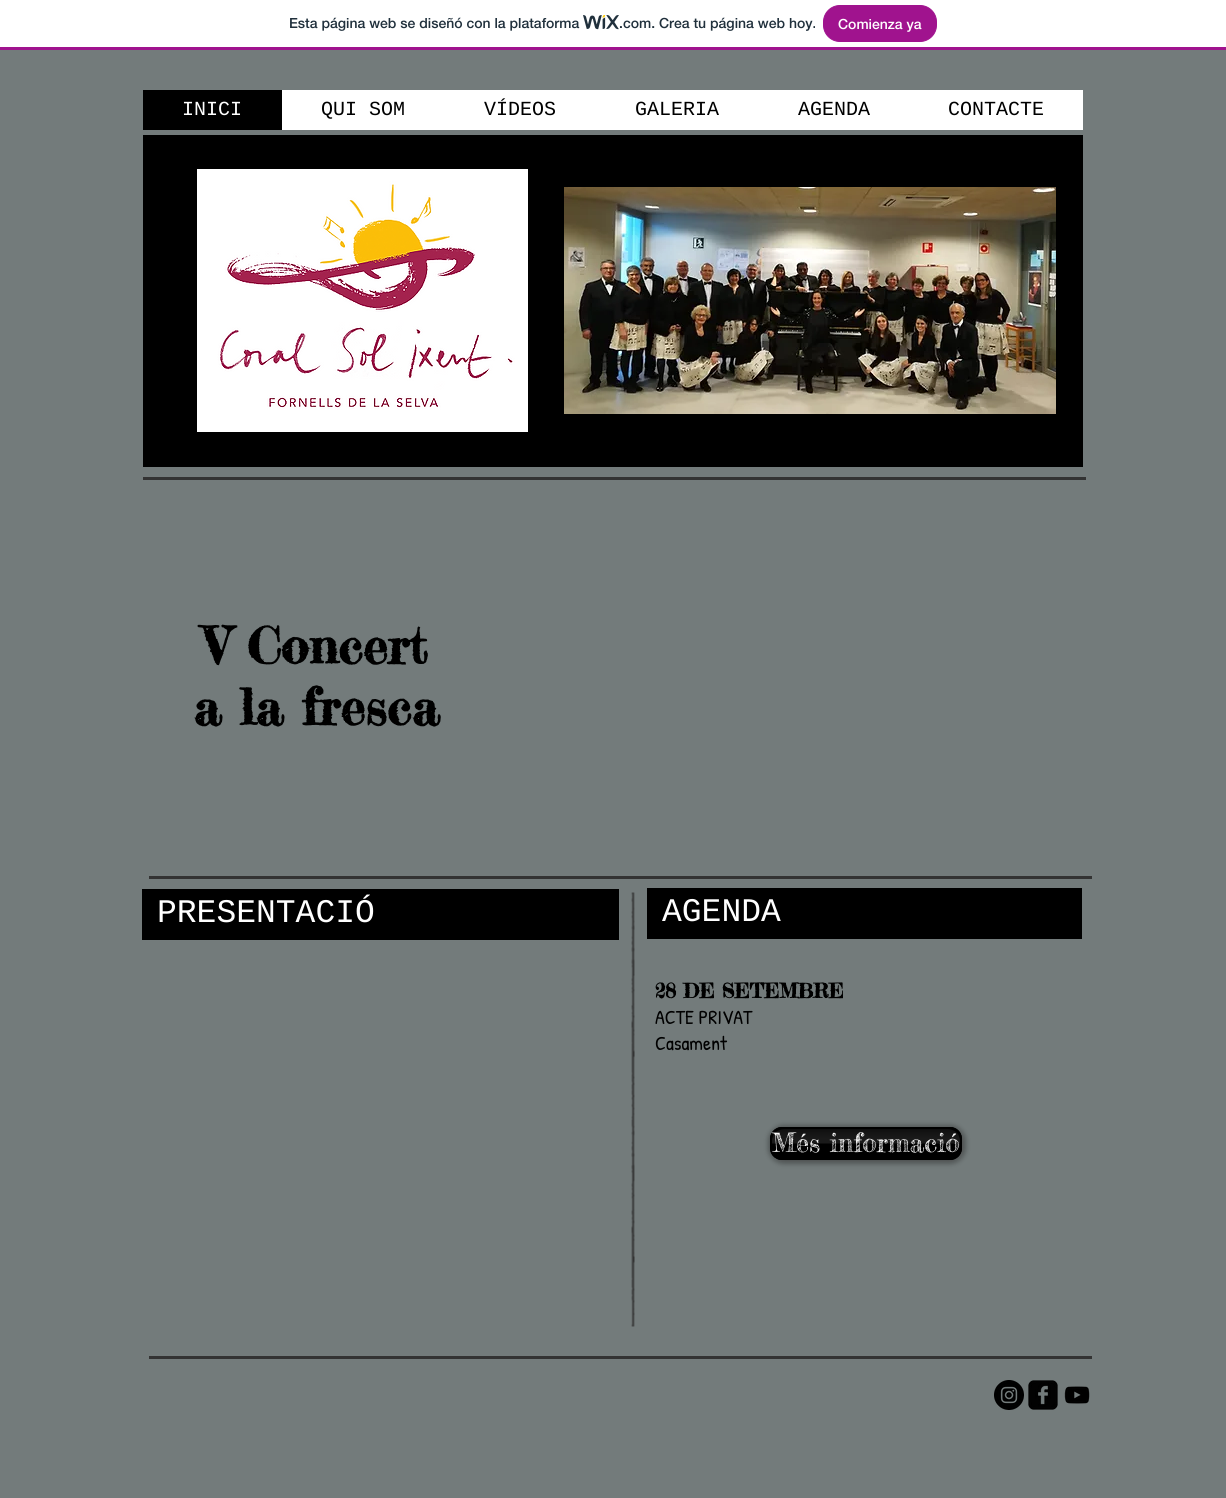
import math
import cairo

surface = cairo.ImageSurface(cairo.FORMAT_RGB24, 1226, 1498)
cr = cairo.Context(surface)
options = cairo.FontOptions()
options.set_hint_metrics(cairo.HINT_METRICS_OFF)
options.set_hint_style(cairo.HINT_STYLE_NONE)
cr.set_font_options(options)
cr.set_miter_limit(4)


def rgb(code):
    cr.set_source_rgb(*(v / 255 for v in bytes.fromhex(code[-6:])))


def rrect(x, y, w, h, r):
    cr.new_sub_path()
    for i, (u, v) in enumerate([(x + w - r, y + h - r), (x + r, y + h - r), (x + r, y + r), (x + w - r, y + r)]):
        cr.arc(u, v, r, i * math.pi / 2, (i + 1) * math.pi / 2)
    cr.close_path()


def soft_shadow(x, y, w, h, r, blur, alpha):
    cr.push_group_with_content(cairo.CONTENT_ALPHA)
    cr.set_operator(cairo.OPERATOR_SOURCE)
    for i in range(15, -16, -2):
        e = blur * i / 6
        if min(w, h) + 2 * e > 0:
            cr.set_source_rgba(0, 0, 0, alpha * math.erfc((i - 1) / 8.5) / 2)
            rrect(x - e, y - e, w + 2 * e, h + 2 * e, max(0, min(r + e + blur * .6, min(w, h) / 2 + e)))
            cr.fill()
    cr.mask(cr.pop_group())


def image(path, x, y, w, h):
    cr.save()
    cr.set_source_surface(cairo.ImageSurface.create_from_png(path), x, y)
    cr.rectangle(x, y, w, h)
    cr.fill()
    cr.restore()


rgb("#ffffff")
cr.paint()
rgb("#a0138e")
cr.rectangle(0, 47, 1226, 3)
cr.fill()
image("img/1.png", 583, 15, 36, 15)
rrect(823.5, 5.5, 113, 36, 16.5)
cr.fill_preserve()
cr.set_line_width(1)
cr.stroke()
for x, y, w, h, color in [
    (0, 50, 1226, 1448, "#737b7b"),
    (143, 90, 139, 40, "#000000"),
    (282, 90, 801, 40, "#ffffff"),
    (143, 135, 940, 332, "#000000"),
]:
    rgb(color)
    cr.rectangle(x, y, w, h)
    cr.fill()
image("img/2.png", 197, 169, 331, 263)
image("img/3.png", 564, 187, 492, 227)
for x, y, w, h, color in [
    (143, 477, 943, 3, "#333333"),
    (149, 876, 943, 3, "#333333"),
    (142, 889, 477, 51, "#000000"),
]:
    rgb(color)
    cr.rectangle(x, y, w, h)
    cr.fill()
image("img/4.png", 631, 892, 4, 435)
cr.rectangle(647, 888, 435, 51)
cr.fill()
rgb("#ffffff")
soft_shadow(771, 1128, 192, 33, 12, 1.5, 0.3)
rgb("#000000")
soft_shadow(770, 1127, 194, 35, 13, 3, 0.6)
rgb("#000000")
rrect(770, 1127, 192, 33, 12)
cr.fill()
image("img/5.png", 770, 1127, 192, 33)
rrect(771, 1128, 190, 31, 11)
cr.set_line_width(2)
cr.stroke()
rgb("#333333")
cr.rectangle(149, 1356, 943, 3)
cr.fill()
image("img/7.png", 994, 1380, 30, 30)
image("img/8.png", 1028, 1380, 30, 30)
image("img/9.png", 1064, 1386, 26, 18)
cr.select_font_face("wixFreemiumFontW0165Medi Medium")
cr.set_font_size(14)
rgb("#20303c")
cr.move_to(289, 28)
cr.show_text("Esta página web se diseñó con la plataforma")
cr.move_to(619, 28)
cr.show_text(".com. Crea tu página web hoy.")
rgb("#ffffff")
cr.move_to(838, 29)
cr.show_text("Comienza ya")
cr.select_font_face("Liberation Mono")
cr.set_font_size(20)
cr.move_to(182, 115)
cr.show_text("INICI")
rgb("#000000")
for x, y, s in [
    (321, 115, "QUI SOM"),
    (484, 115, "VÍDEOS"),
    (635, 115, "GALERIA"),
    (798, 115, "AGENDA"),
    (948, 115, "CONTACTE"),
]:
    cr.move_to(x, y)
    cr.show_text(s)
cr.select_font_face("Fredericka the Great", cairo.FONT_SLANT_NORMAL, cairo.FONT_WEIGHT_BOLD)
cr.set_font_size(50)
cr.move_to(204, 664)
cr.show_text("V Concert")
cr.move_to(193, 725)
cr.show_text("a la fresca")
cr.select_font_face("Liberation Mono")
cr.set_font_size(33)
rgb("#ffffff")
cr.move_to(157, 922)
cr.show_text("PRESENTACIÓ")
cr.move_to(662, 921)
cr.show_text("AGENDA")
cr.select_font_face("Fredericka the Great", cairo.FONT_SLANT_NORMAL, cairo.FONT_WEIGHT_BOLD)
cr.set_font_size(20)
rgb("#000000")
cr.move_to(655, 998)
cr.show_text("28 DE SETEMBRE")
cr.select_font_face("Patrick Hand")
cr.move_to(655, 1024)
cr.show_text("ACTE PRIVAT")
cr.move_to(655, 1050)
cr.show_text("Casament")
cr.select_font_face("Fredericka the Great")
cr.set_font_size(26)
rgb("#ffffff")
cr.move_to(772, 1152)
cr.show_text("Més informació")
image("img/6.png", 772, 1129, 188, 15)
surface.write_to_png("page.png")
